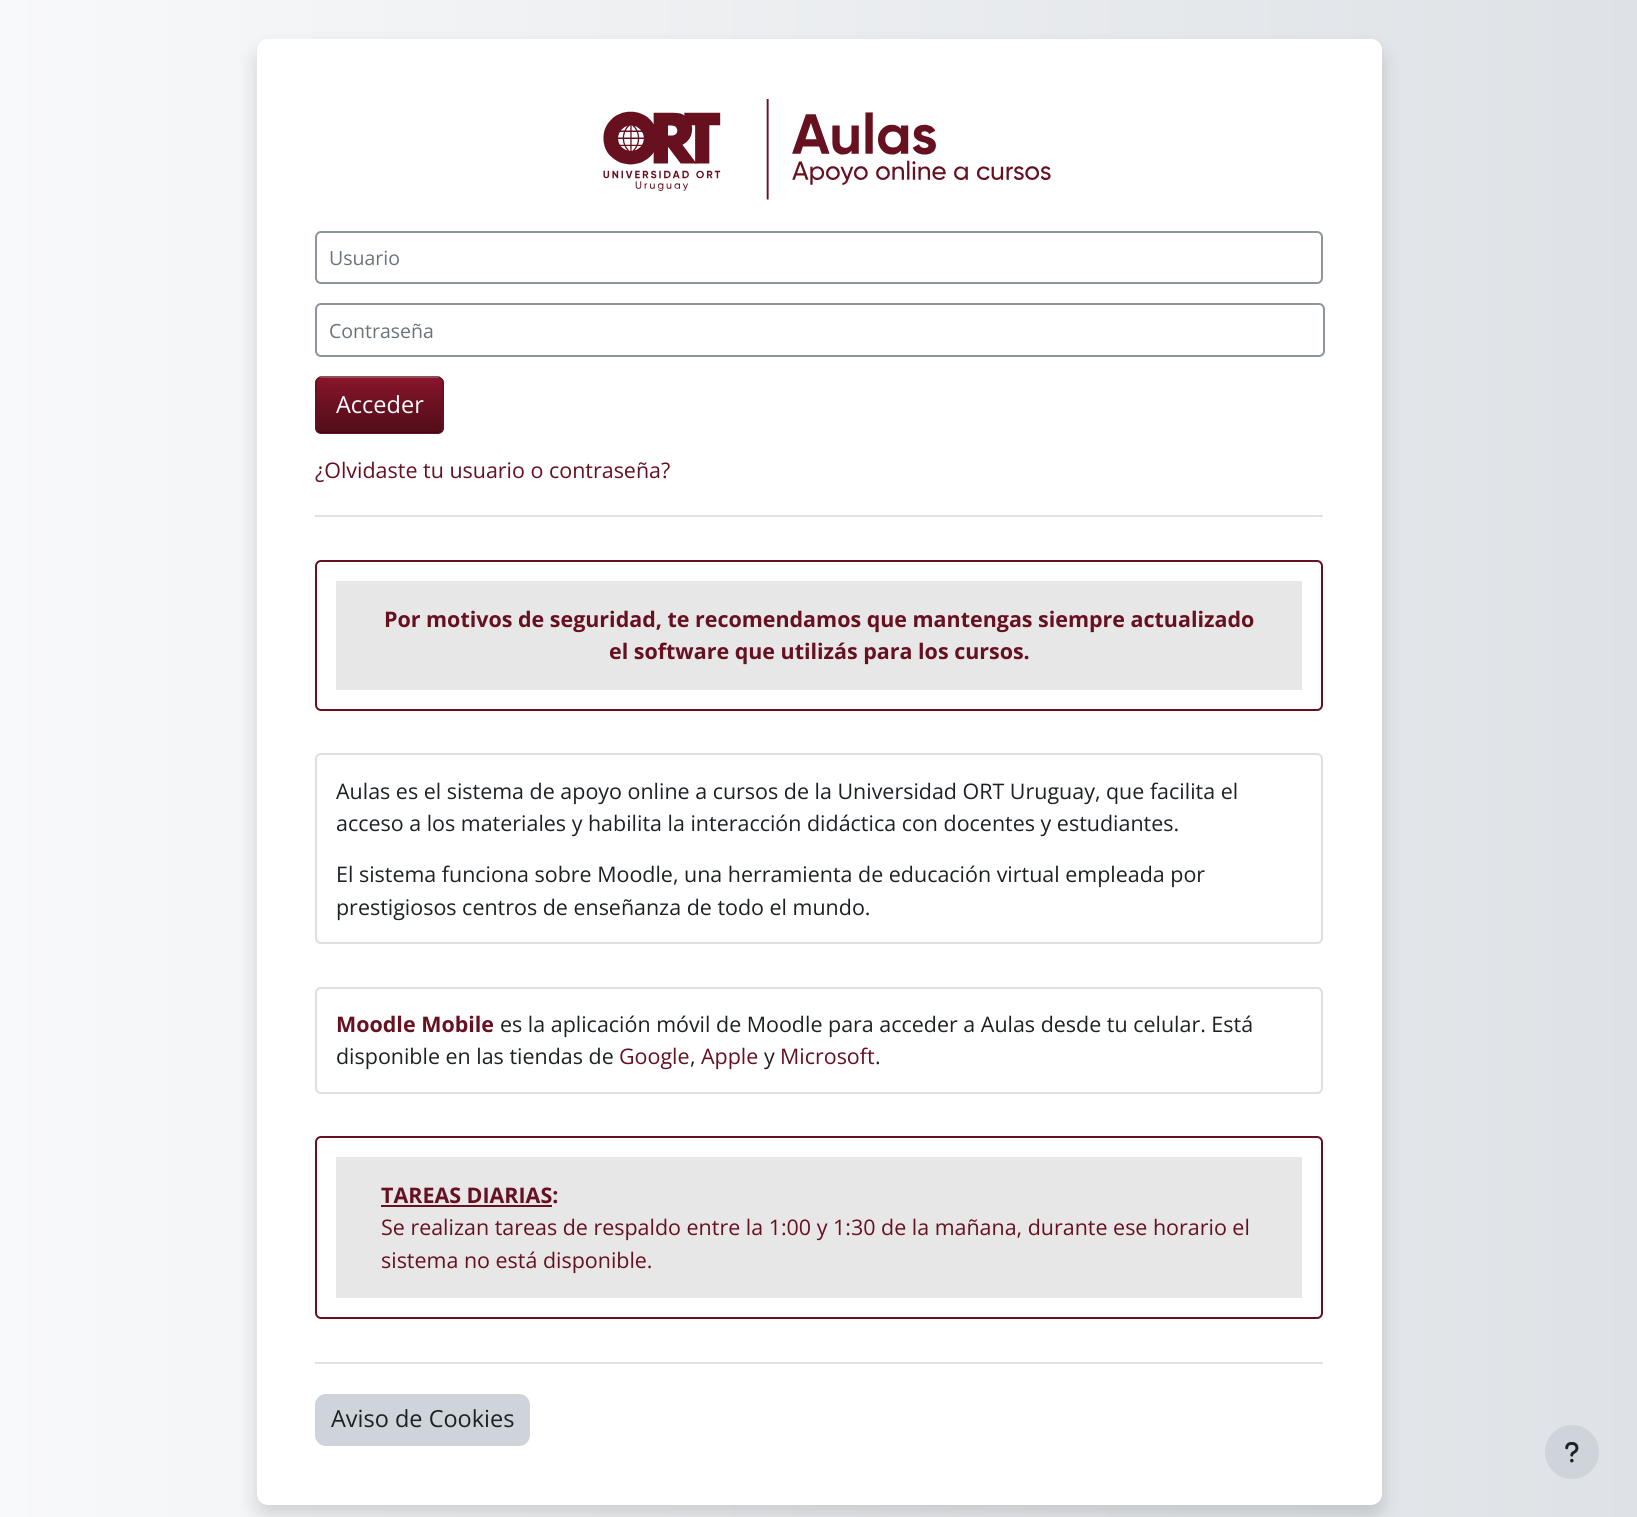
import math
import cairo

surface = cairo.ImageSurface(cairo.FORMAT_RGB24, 1637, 1517)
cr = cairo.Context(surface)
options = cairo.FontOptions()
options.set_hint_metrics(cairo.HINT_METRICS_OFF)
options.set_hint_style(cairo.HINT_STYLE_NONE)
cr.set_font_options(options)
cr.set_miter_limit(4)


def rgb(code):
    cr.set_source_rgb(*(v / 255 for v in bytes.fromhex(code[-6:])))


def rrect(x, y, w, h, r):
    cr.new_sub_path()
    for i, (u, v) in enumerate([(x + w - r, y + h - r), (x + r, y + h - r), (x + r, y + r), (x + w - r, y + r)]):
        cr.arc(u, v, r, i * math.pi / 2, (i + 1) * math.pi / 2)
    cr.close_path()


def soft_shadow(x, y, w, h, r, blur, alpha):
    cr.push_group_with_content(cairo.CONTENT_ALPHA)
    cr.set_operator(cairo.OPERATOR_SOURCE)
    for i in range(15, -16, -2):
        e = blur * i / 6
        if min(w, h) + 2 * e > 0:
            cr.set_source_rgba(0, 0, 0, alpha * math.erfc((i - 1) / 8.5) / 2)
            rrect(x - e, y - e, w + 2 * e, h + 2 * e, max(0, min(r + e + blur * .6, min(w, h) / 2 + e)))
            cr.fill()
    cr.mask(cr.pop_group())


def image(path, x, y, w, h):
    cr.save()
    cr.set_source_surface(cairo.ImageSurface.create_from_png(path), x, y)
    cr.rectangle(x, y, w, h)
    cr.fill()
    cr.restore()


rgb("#ffffff")
cr.paint()
gradient = cairo.LinearGradient(0, 839, 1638, 839)
gradient.add_color_stop_rgba(0, 0.973, 0.976, 0.98, 1)
gradient.add_color_stop_rgba(1, 0.871, 0.886, 0.902, 1)
cr.set_source(gradient)
cr.rectangle(0, 0, 1637, 1517)
cr.fill()
rgb("#000000")
soft_shadow(257, 50, 1125, 1465, 11, 10, 0.15)
rgb("#ffffff")
rrect(257, 39, 1125, 1466, 11)
cr.fill()
image("img/1.png", 603, 99, 448, 101)
rrect(316, 232, 1006, 51, 5)
rgb("#8f959e")
cr.stroke()
rrect(316, 304, 1008, 52, 5)
cr.stroke()
cr.save()
rrect(315, 377, 129, 57, 6)
cr.clip()
gradient = cairo.LinearGradient(380, 378, 380, 432)
gradient.add_color_stop_rgba(0, 0.537, 0.082, 0.169, 1)
gradient.add_color_stop_rgba(0.6, 0.396, 0.063, 0.125, 1)
gradient.add_color_stop_rgba(1, 0.329, 0.051, 0.102, 1)
cr.set_source(gradient)
cr.rectangle(315, 378, 129, 54)
cr.fill()
gradient = cairo.LinearGradient(380, 432, 380, 486)
gradient.add_color_stop_rgba(0, 0.537, 0.082, 0.169, 1)
gradient.add_color_stop_rgba(0.6, 0.396, 0.063, 0.125, 1)
gradient.add_color_stop_rgba(1, 0.329, 0.051, 0.102, 1)
cr.set_source(gradient)
cr.rectangle(315, 432, 129, 2)
cr.fill()
cr.restore()
cr.new_path()
cr.move_to(441.5, 431)
cr.line_to(438.5, 432.5)
cr.line_to(320.5, 432.5)
cr.line_to(317.5, 431)
rgb("#390912")
cr.set_line_width(1.5)
cr.stroke()
cr.new_path()
cr.move_to(317.5, 431)
cr.curve_to(316.5, 430, 316, 429, 316, 427.5)
cr.line_to(316, 382.5)
cr.curve_to(316, 381, 316.5, 380, 317.5, 379)
cr.curve_to(318.5, 378, 319.5, 377, 321, 377)
cr.line_to(438, 377)
cr.curve_to(439.5, 377, 440.5, 378, 441.5, 379)
cr.curve_to(442.5, 380, 443, 381, 443, 382.5)
cr.line_to(443, 427.5)
cr.curve_to(443, 429, 442.5, 430, 441.5, 431)
rgb("#661020")
cr.stroke()
rgb("#dee2e6")
cr.rectangle(315, 515, 1008, 2)
cr.fill()
rrect(316, 561, 1006, 149, 5)
rgb("#661020")
cr.set_line_width(2)
cr.stroke()
rgb("#e7e7e7")
cr.rectangle(336, 581, 966, 109)
cr.fill()
rrect(316, 754, 1006, 189, 5)
rgb("#dfdfdf")
cr.stroke()
rrect(316, 988, 1006, 105, 5)
cr.stroke()
rrect(316, 1137, 1006, 181, 5)
rgb("#661020")
cr.stroke()
for x, y, w, h, color in [
    (336, 1157, 966, 141, "#e7e7e7"),
    (381, 1205, 171, 2, "#661020"),
    (315, 1362, 1008, 2, "#dee2e6"),
]:
    rgb(color)
    cr.rectangle(x, y, w, h)
    cr.fill()
rgb("#ced4da")
rrect(316, 1395, 213, 50, 10)
cr.fill_preserve()
cr.stroke()
cr.arc(1572, 1452, 27, 0, 2 * math.pi)
cr.fill()
image("img/2.png", 1565, 1442, 14, 21)
cr.select_font_face("Open Sans")
cr.set_font_size(19.5)
rgb("#6a737b")
cr.move_to(329, 265)
cr.show_text("Usuario")
cr.move_to(329, 338)
cr.show_text("Contraseña")
cr.set_font_size(23.5)
rgb("#ffffff")
cr.move_to(336, 413)
cr.show_text("Acceder")
cr.set_font_size(21.45)
rgb("#661020")
cr.move_to(315, 478)
cr.show_text("¿Olvidaste tu usuario o contraseña?")
cr.select_font_face("Open Sans", cairo.FONT_SLANT_NORMAL, cairo.FONT_WEIGHT_BOLD)
cr.move_to(384, 627)
cr.show_text("Por motivos de seguridad, te recomendamos que mantengas siempre actualizado")
cr.move_to(609, 659)
cr.show_text("el software que utilizás para los cursos.")
cr.select_font_face("Open Sans")
rgb("#1d2125")
for x, y, s in [
    (336, 799, "Aulas es el sistema de apoyo online a cursos de la Universidad ORT Uruguay, que facilita el"),
    (336, 831, "acceso a los materiales y habilita la interacción didáctica con docentes y estudiantes."),
    (336, 882, "El sistema funciona sobre Moodle, una herramienta de educación virtual empleada por"),
    (336, 915, "prestigiosos centros de enseñanza de todo el mundo."),
]:
    cr.move_to(x, y)
    cr.show_text(s)
cr.select_font_face("Open Sans", cairo.FONT_SLANT_NORMAL, cairo.FONT_WEIGHT_BOLD)
rgb("#661020")
cr.move_to(336, 1032)
cr.show_text("Moodle Mobile")
cr.select_font_face("Open Sans")
rgb("#1d2125")
cr.move_to(500, 1032)
cr.show_text("es la aplicación móvil de Moodle para acceder a Aulas desde tu celular. Está")
cr.move_to(336, 1064)
cr.show_text("disponible en las tiendas de")
rgb("#661020")
cr.move_to(619, 1064)
cr.show_text("Google")
rgb("#1d2125")
cr.move_to(690, 1064)
cr.show_text(",")
rgb("#661020")
cr.move_to(701, 1064)
cr.show_text("Apple")
rgb("#1d2125")
cr.move_to(764, 1064)
cr.show_text("y")
rgb("#661020")
cr.move_to(780, 1064)
cr.show_text("Microsoft")
rgb("#1d2125")
cr.move_to(875, 1064)
cr.show_text(".")
cr.select_font_face("Open Sans", cairo.FONT_SLANT_NORMAL, cairo.FONT_WEIGHT_BOLD)
rgb("#661020")
cr.move_to(381, 1203)
cr.show_text("TAREAS DIARIAS:")
cr.select_font_face("Open Sans")
cr.move_to(381, 1235)
cr.show_text("Se realizan tareas de respaldo entre la 1:00 y 1:30 de la mañana, durante ese horario el")
cr.move_to(381, 1268)
cr.show_text("sistema no está disponible.")
cr.set_font_size(23.5)
rgb("#1d2125")
cr.move_to(331, 1427)
cr.show_text("Aviso de Cookies")
surface.write_to_png("page.png")
